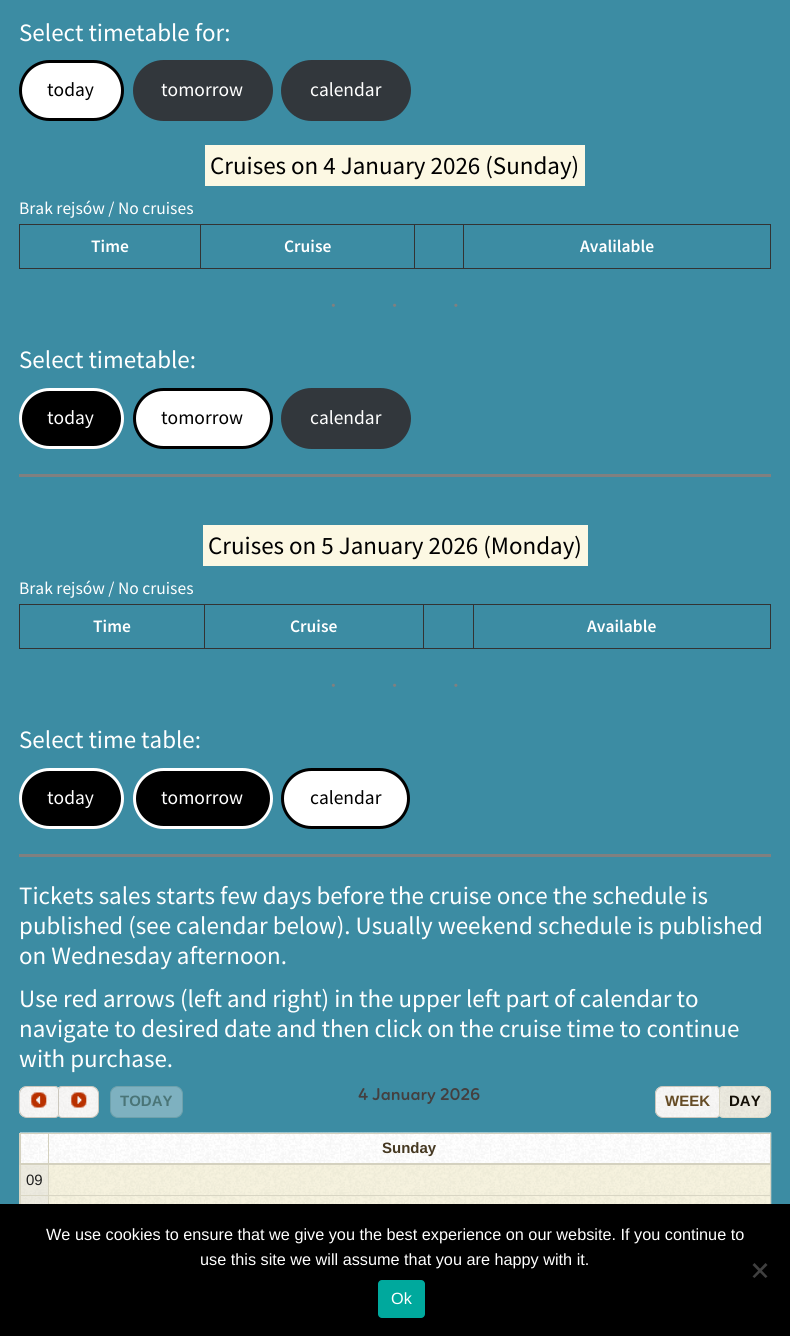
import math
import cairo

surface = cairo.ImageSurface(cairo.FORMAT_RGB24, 790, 1336)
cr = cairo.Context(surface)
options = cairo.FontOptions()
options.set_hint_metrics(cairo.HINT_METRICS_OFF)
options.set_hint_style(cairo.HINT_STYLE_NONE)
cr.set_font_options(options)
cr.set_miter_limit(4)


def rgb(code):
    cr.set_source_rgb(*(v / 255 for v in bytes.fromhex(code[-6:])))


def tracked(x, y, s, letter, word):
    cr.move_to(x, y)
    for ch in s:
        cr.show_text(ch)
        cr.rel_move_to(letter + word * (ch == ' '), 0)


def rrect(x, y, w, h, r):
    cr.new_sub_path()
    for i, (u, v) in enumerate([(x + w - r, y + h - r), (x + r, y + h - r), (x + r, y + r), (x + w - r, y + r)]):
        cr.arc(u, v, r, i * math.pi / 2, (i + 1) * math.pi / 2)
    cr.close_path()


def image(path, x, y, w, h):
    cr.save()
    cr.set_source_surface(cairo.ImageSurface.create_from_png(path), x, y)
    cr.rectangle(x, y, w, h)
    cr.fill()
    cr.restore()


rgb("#3c8ca3")
cr.paint()
rgb("#ffffff")
rrect(20.5, 61.5, 102, 58, 29)
cr.fill_preserve()
rgb("#000000")
cr.set_line_width(3)
cr.stroke()
rgb("#32373c")
rrect(133, 60, 140, 61, 30.5)
cr.fill()
rrect(281, 60, 130, 61, 30.5)
cr.fill()
for x, y, w, h, color in [
    (205, 145, 380, 41, "#fcf8e3"),
    (463, 224, 308, 1, "#333333"),
    (770, 224, 1, 45, "#333333"),
    (463, 268, 308, 1, "#333333"),
    (463, 224, 1, 45, "#333333"),
    (414, 224, 50, 1, "#333333"),
    (414, 268, 50, 1, "#333333"),
    (414, 224, 1, 45, "#333333"),
    (200, 224, 215, 1, "#333333"),
    (200, 268, 215, 1, "#333333"),
    (200, 224, 1, 45, "#333333"),
    (19, 224, 182, 1, "#333333"),
    (19, 268, 182, 1, "#333333"),
    (19, 224, 1, 45, "#333333"),
]:
    rgb(color)
    cr.rectangle(x, y, w, h)
    cr.fill()
rgb("#000000")
rrect(20.5, 389.5, 102, 58, 29)
cr.fill_preserve()
rgb("#ffffff")
cr.stroke()
rrect(134.5, 389.5, 137, 58, 29)
cr.fill_preserve()
rgb("#000000")
cr.stroke()
rgb("#32373c")
rrect(281, 388, 130, 61, 30.5)
cr.fill()
for x, y, w, h, color in [
    (19, 474, 752, 3, "#808080"),
    (203, 525, 385, 41, "#fcf8e3"),
    (473, 604, 298, 1, "#333333"),
    (770, 604, 1, 45, "#333333"),
    (473, 648, 298, 1, "#333333"),
    (473, 604, 1, 45, "#333333"),
    (423, 604, 51, 1, "#333333"),
    (423, 648, 51, 1, "#333333"),
    (423, 604, 1, 45, "#333333"),
    (204, 604, 220, 1, "#333333"),
    (204, 648, 220, 1, "#333333"),
    (204, 604, 1, 45, "#333333"),
    (19, 604, 186, 1, "#333333"),
    (19, 648, 186, 1, "#333333"),
    (19, 604, 1, 45, "#333333"),
]:
    rgb(color)
    cr.rectangle(x, y, w, h)
    cr.fill()
rgb("#000000")
rrect(20.5, 769.5, 102, 58, 29)
cr.fill_preserve()
rgb("#ffffff")
cr.stroke()
rgb("#000000")
rrect(134.5, 769.5, 137, 58, 29)
cr.fill_preserve()
rgb("#ffffff")
cr.stroke()
rrect(282.5, 769.5, 126, 58, 29)
cr.fill_preserve()
rgb("#000000")
cr.stroke()
rgb("#808080")
cr.rectangle(19, 854, 752, 3)
cr.fill()
image("img/1.png", 18, 1086, 41, 32)
cr.new_path()
cr.move_to(27, 1086.5)
cr.line_to(55, 1086.5)
cr.curve_to(57, 1086.5, 58.5, 1088, 58.5, 1090)
cr.line_to(58.5, 1114)
cr.curve_to(58.5, 1116, 57, 1117.5, 55, 1117.5)
cr.line_to(27, 1117.5)
cr.curve_to(23, 1117.5, 19.5, 1114, 19.5, 1110)
cr.line_to(19.5, 1094)
cr.curve_to(19.5, 1090, 23, 1086.5, 27, 1086.5)
cr.close_path()
rgb("#cbc7bd")
cr.set_line_width(1)
cr.stroke()
image("img/2.png", 31, 1092, 16, 16)
image("img/3.png", 57, 1086, 42, 32)
cr.new_path()
cr.move_to(62, 1086.5)
cr.line_to(91, 1086.5)
cr.curve_to(95, 1086.5, 98.5, 1090, 98.5, 1094)
cr.line_to(98.5, 1110)
cr.curve_to(98.5, 1114, 95, 1117.5, 91, 1117.5)
cr.line_to(62, 1117.5)
cr.curve_to(60, 1117.5, 58.5, 1116, 58.5, 1114)
cr.line_to(58.5, 1090)
cr.curve_to(58.5, 1088, 60, 1086.5, 62, 1086.5)
cr.close_path()
cr.stroke()
image("img/4.png", 71, 1092, 16, 16)
rgb("#7eb1c0")
rrect(110.5, 1086.5, 72, 31, 7.5)
cr.fill_preserve()
rgb("#6ea1ac")
cr.stroke()
image("img/5.png", 655, 1086, 65, 32)
cr.new_path()
cr.move_to(663, 1086.5)
cr.line_to(716, 1086.5)
cr.curve_to(718, 1086.5, 719.5, 1088, 719.5, 1090)
cr.line_to(719.5, 1114)
cr.curve_to(719.5, 1116, 718, 1117.5, 716, 1117.5)
cr.line_to(663, 1117.5)
cr.curve_to(659, 1117.5, 655.5, 1114, 655.5, 1110)
cr.line_to(655.5, 1094)
cr.curve_to(655.5, 1090, 659, 1086.5, 663, 1086.5)
cr.close_path()
rgb("#cbc7bd")
cr.stroke()
image("img/6.png", 719, 1086, 53, 32)
cr.new_path()
cr.move_to(723, 1086.5)
cr.line_to(763, 1086.5)
cr.curve_to(767, 1086.5, 770.5, 1090, 770.5, 1094)
cr.line_to(770.5, 1110)
cr.curve_to(770.5, 1114, 767, 1117.5, 763, 1117.5)
cr.line_to(723, 1117.5)
cr.curve_to(721, 1117.5, 719.5, 1116, 719.5, 1114)
cr.line_to(719.5, 1090)
cr.curve_to(719.5, 1088, 721, 1086.5, 723, 1086.5)
cr.close_path()
rgb("#d9d6c4")
cr.stroke()
image("img/7.png", 20, 1132, 752, 32)
for x, y, w, h, color in [
    (770, 1164, 1, 40, "#d9d6c4"),
    (770, 1133, 1, 32, "#d4d1bf"),
    (19, 1164, 1, 40, "#d9d6c4"),
    (19, 1164, 752, 1, "#d4d1bf"),
    (19, 1133, 1, 32, "#d4d1bf"),
]:
    rgb(color)
    cr.rectangle(x, y, w, h)
    cr.fill()
image("img/8.png", 21, 1134, 27, 29)
for x, y, w, h, color in [
    (48, 1133, 723, 1, "#d4d1bf"),
    (48, 1163, 723, 1, "#d4d1bf"),
    (48, 1133, 1, 31, "#d4d1bf"),
    (20, 1133, 29, 1, "#d4d1bf"),
    (20, 1163, 29, 1, "#d4d1bf"),
    (20, 1133, 1, 31, "#d4d1bf"),
]:
    rgb(color)
    cr.rectangle(x, y, w, h)
    cr.fill()
image("img/9.png", 49, 1134, 721, 29)
image("img/10.png", 771, 1163, 1, 41)
rgb("#eceadf")
cr.rectangle(21, 1165, 27, 1)
cr.fill()
image("img/11.png", 21, 1166, 27, 38)
rgb("#d9d6c4")
cr.rectangle(48, 1165, 1, 39)
cr.fill()
cr.rectangle(20, 1165, 1, 39)
cr.fill()
image("img/12.png", 49, 1165, 721, 39)
cr.rectangle(20, 1195, 750, 1)
cr.fill()
rgb("#000000")
cr.rectangle(0, 1204, 790, 132)
cr.fill()
rgb("#404040")
cr.new_path()
cr.move_to(765.5, 1263)
cr.line_to(767.5, 1265)
cr.line_to(754.5, 1278)
cr.line_to(752.5, 1276.5)
cr.close_path()
cr.fill()
cr.new_path()
cr.move_to(752.5, 1265)
cr.line_to(754.5, 1263)
cr.line_to(767.5, 1276.5)
cr.line_to(765.5, 1278)
cr.close_path()
cr.fill()
rgb("#00a99d")
rrect(378, 1280, 47, 38, 4)
cr.fill()
cr.select_font_face("Source Sans Pro")
cr.set_font_size(25)
rgb("#ffffff")
cr.move_to(19, 41)
cr.show_text("Select timetable for:")
cr.set_font_size(19.5)
rgb("#000000")
cr.move_to(47, 96)
cr.show_text("today")
rgb("#ffffff")
cr.move_to(161, 96)
cr.show_text("tomorrow")
cr.move_to(310, 96)
cr.show_text("calendar")
cr.set_font_size(25)
rgb("#000000")
cr.move_to(210, 174)
cr.show_text("Cruises on 4 January 2026 (Sunday)")
cr.set_font_size(17.5)
rgb("#ffffff")
cr.move_to(19, 214)
cr.show_text("Brak rejsów / No cruises")
cr.select_font_face("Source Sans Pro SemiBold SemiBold")
for x, y, s in [
    (91, 252, "Time"),
    (284, 252, "Cruise"),
    (580, 252, "Avalilable"),
]:
    cr.move_to(x, y)
    cr.show_text(s)
cr.select_font_face("Liberation Serif")
cr.set_font_size(26.25)
rgb("#808080")
tracked(329, 314, "···", 52.5, 0)
cr.select_font_face("Source Sans Pro")
cr.set_font_size(25)
rgb("#ffffff")
cr.move_to(19, 368)
cr.show_text("Select timetable:")
cr.set_font_size(19.5)
cr.move_to(47, 424)
cr.show_text("today")
rgb("#000000")
cr.move_to(161, 424)
cr.show_text("tomorrow")
rgb("#ffffff")
cr.move_to(310, 424)
cr.show_text("calendar")
cr.set_font_size(25)
rgb("#000000")
cr.move_to(208, 554)
cr.show_text("Cruises on 5 January 2026 (Monday)")
cr.set_font_size(17.5)
rgb("#ffffff")
cr.move_to(19, 594)
cr.show_text("Brak rejsów / No cruises")
cr.select_font_face("Source Sans Pro SemiBold SemiBold")
for x, y, s in [
    (93, 632, "Time"),
    (290, 632, "Cruise"),
    (587, 632, "Available"),
]:
    cr.move_to(x, y)
    cr.show_text(s)
cr.select_font_face("Liberation Serif")
cr.set_font_size(26.25)
rgb("#808080")
tracked(329, 694, "···", 52.5, 0)
cr.select_font_face("Source Sans Pro")
cr.set_font_size(25)
rgb("#ffffff")
cr.move_to(19, 748)
cr.show_text("Select time table:")
cr.set_font_size(19.5)
cr.move_to(47, 804)
cr.show_text("today")
cr.move_to(161, 804)
cr.show_text("tomorrow")
rgb("#000000")
cr.move_to(310, 804)
cr.show_text("calendar")
cr.set_font_size(25)
rgb("#ffffff")
for x, y, s in [
    (19, 904, "Tickets sales starts few days before the cruise once the schedule is"),
    (19, 934, "published (see calendar below). Usually weekend schedule is published"),
    (19, 964, "on Wednesday afternoon."),
    (19, 1007, "Use red arrows (left and right) in the upper left part of calendar to"),
    (19, 1037, "navigate to desired date and then click on the cruise time to continue"),
    (19, 1067, "with purchase."),
]:
    cr.move_to(x, y)
    cr.show_text(s)
cr.select_font_face("Liberation Sans", cairo.FONT_SLANT_NORMAL, cairo.FONT_WEIGHT_BOLD)
cr.set_font_size(15)
rgb("#4a7577")
cr.move_to(120, 1106)
cr.show_text("TODAY")
cr.select_font_face("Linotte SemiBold")
cr.set_font_size(17.5)
rgb("#443f3f")
cr.move_to(358, 1100)
cr.show_text("4 January 2026")
cr.select_font_face("Liberation Sans", cairo.FONT_SLANT_NORMAL, cairo.FONT_WEIGHT_BOLD)
cr.set_font_size(15)
rgb("#654b24")
cr.move_to(665, 1106)
cr.show_text("WEEK")
rgb("#140f06")
cr.move_to(729, 1106)
cr.show_text("DAY")
rgb("#453821")
cr.move_to(382, 1153)
cr.show_text("Sunday")
cr.select_font_face("Liberation Sans")
rgb("#1f1f1f")
cr.move_to(26, 1185)
cr.show_text("09")
cr.set_font_size(16.25)
rgb("#ffffff")
for x, y, s in [
    (46, 1240, "We use cookies to ensure that we give you the best experience on our website. If you continue to"),
    (200, 1265, "use this site we will assume that you are happy with it."),
    (391, 1304, "Ok"),
]:
    cr.move_to(x, y)
    cr.show_text(s)
surface.write_to_png("page.png")
